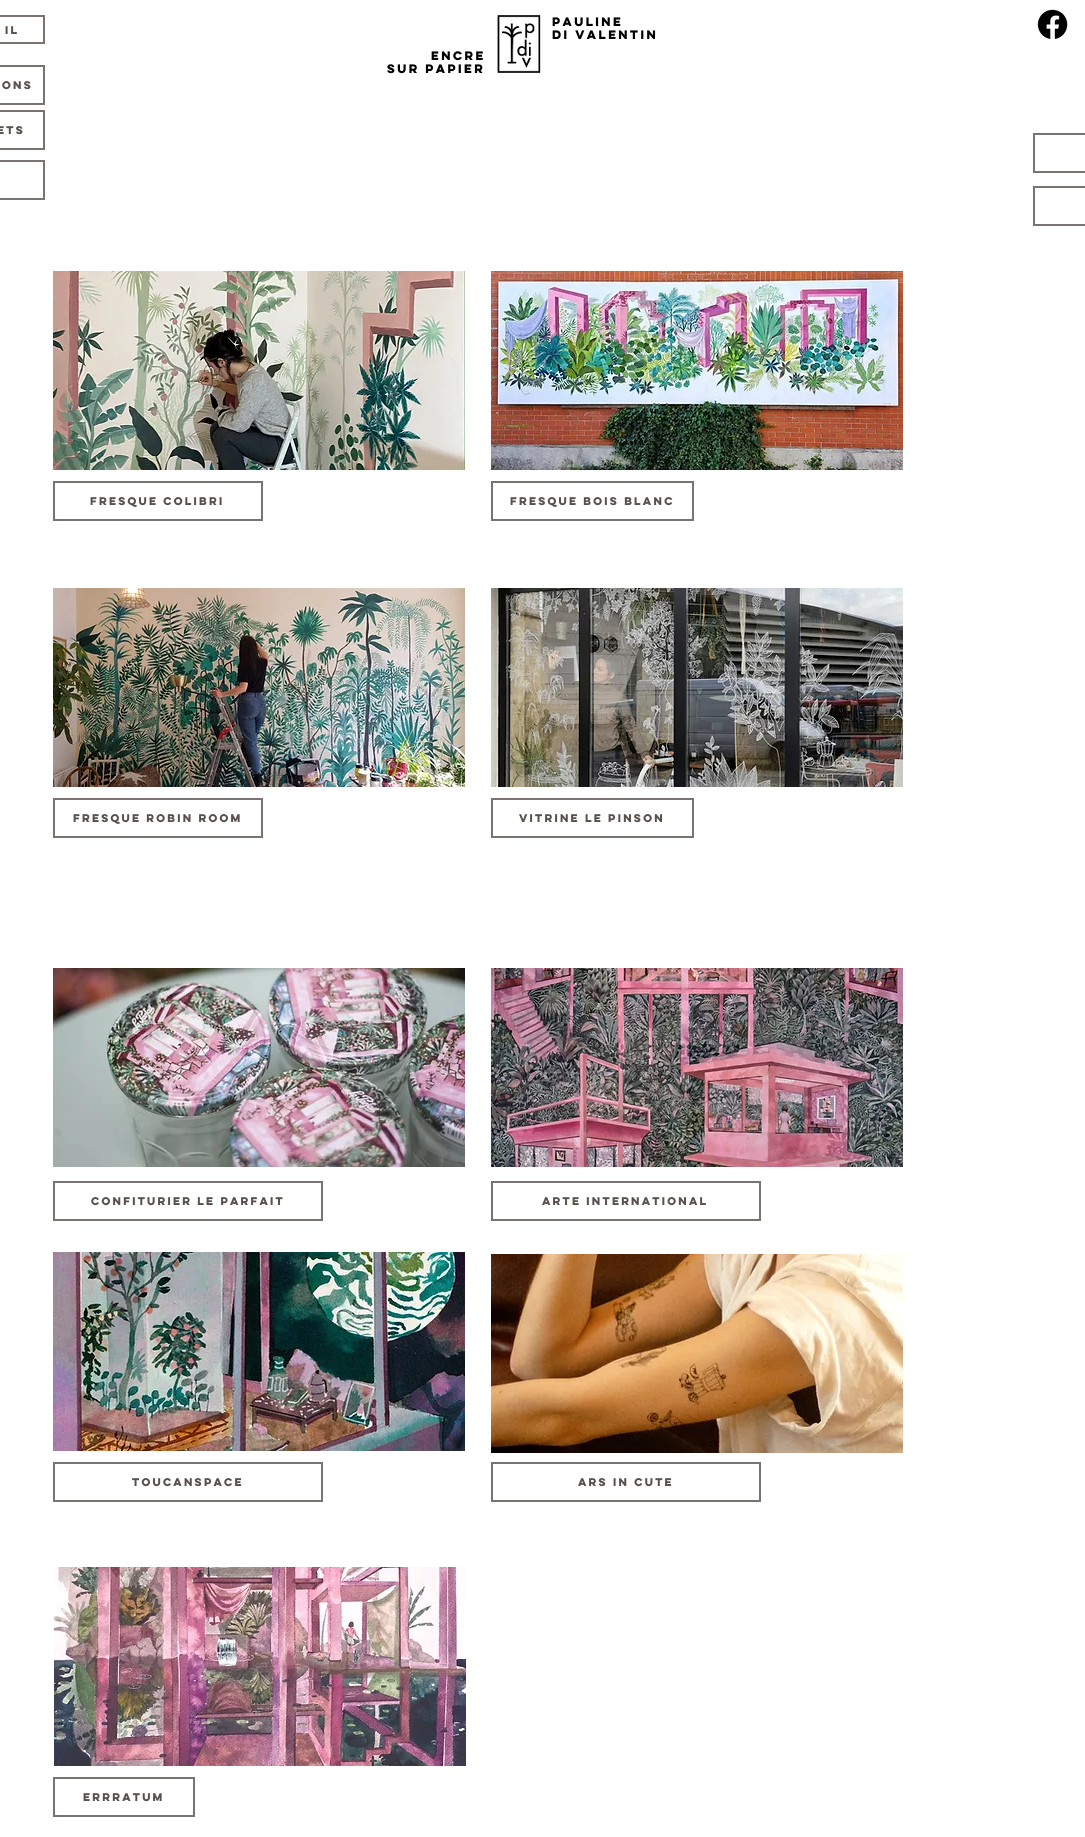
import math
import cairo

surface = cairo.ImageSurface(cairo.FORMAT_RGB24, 1085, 1837)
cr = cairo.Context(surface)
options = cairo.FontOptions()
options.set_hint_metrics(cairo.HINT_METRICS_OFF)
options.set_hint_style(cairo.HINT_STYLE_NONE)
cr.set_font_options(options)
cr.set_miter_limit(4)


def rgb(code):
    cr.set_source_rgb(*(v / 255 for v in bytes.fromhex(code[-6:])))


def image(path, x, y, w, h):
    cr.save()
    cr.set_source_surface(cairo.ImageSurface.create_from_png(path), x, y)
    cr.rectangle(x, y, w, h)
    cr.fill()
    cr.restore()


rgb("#ffffff")
cr.paint()
cr.rectangle(-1, 16, 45, 27)
rgb("#7b736f")
cr.stroke()
image("img/1.png", 497, 15, 44, 58)
image("img/2.png", 1037, 9, 31, 30)
cr.rectangle(-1, 66, 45, 38)
cr.stroke()
cr.rectangle(-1, 111, 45, 38)
cr.stroke()
cr.rectangle(1034, 134, 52, 38)
cr.stroke()
cr.rectangle(-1, 161, 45, 38)
cr.stroke()
cr.rectangle(1034, 187, 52, 38)
cr.stroke()
image("img/3.png", 53, 271, 412, 199)
image("img/4.png", 491, 271, 412, 199)
cr.rectangle(54, 482, 208, 38)
cr.stroke()
cr.rectangle(492, 482, 201, 38)
cr.stroke()
image("img/5.png", 53, 588, 412, 199)
image("img/6.png", 491, 588, 412, 199)
cr.rectangle(54, 799, 208, 38)
cr.stroke()
cr.rectangle(492, 799, 201, 38)
cr.stroke()
image("img/7.png", 53, 968, 412, 199)
image("img/8.png", 491, 968, 412, 199)
cr.rectangle(54, 1182, 268, 38)
cr.stroke()
cr.rectangle(492, 1182, 268, 38)
cr.stroke()
image("img/9.png", 53, 1252, 412, 199)
image("img/10.png", 491, 1254, 412, 199)
cr.rectangle(54, 1463, 268, 38)
cr.stroke()
cr.rectangle(492, 1463, 268, 38)
cr.stroke()
image("img/11.png", 54, 1567, 412, 199)
cr.rectangle(54, 1778, 140, 38)
cr.stroke()
cr.select_font_face("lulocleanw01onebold", cairo.FONT_SLANT_NORMAL, cairo.FONT_WEIGHT_BOLD)
cr.set_font_size(10)
rgb("#59514d")
cr.move_to(5, 34)
cr.show_text("il")
cr.set_font_size(11)
rgb("#000000")
for x, y, s in [
    (552, 26, "Pauline"),
    (552, 39, "Di Valentin"),
    (431, 60, "Encre"),
    (387, 73, "sur papier"),
]:
    cr.move_to(x, y)
    cr.show_text(s)
cr.set_font_size(10)
rgb("#59514d")
for x, y, s in [
    (2, 89, "ons"),
    (-3, 134, "ets"),
    (90, 505, "Fresque Colibri"),
    (510, 505, "Fresque Bois Blanc"),
    (73, 822, "Fresque Robin Room"),
    (519, 822, "Vitrine le Pinson"),
    (91, 1205, "Confiturier Le parfait"),
    (542, 1205, "Arte International"),
    (132, 1486, "ToucanSpace"),
    (578, 1486, "Ars In Cute"),
    (83, 1801, "Errratum"),
]:
    cr.move_to(x, y)
    cr.show_text(s)
surface.write_to_png("page.png")
